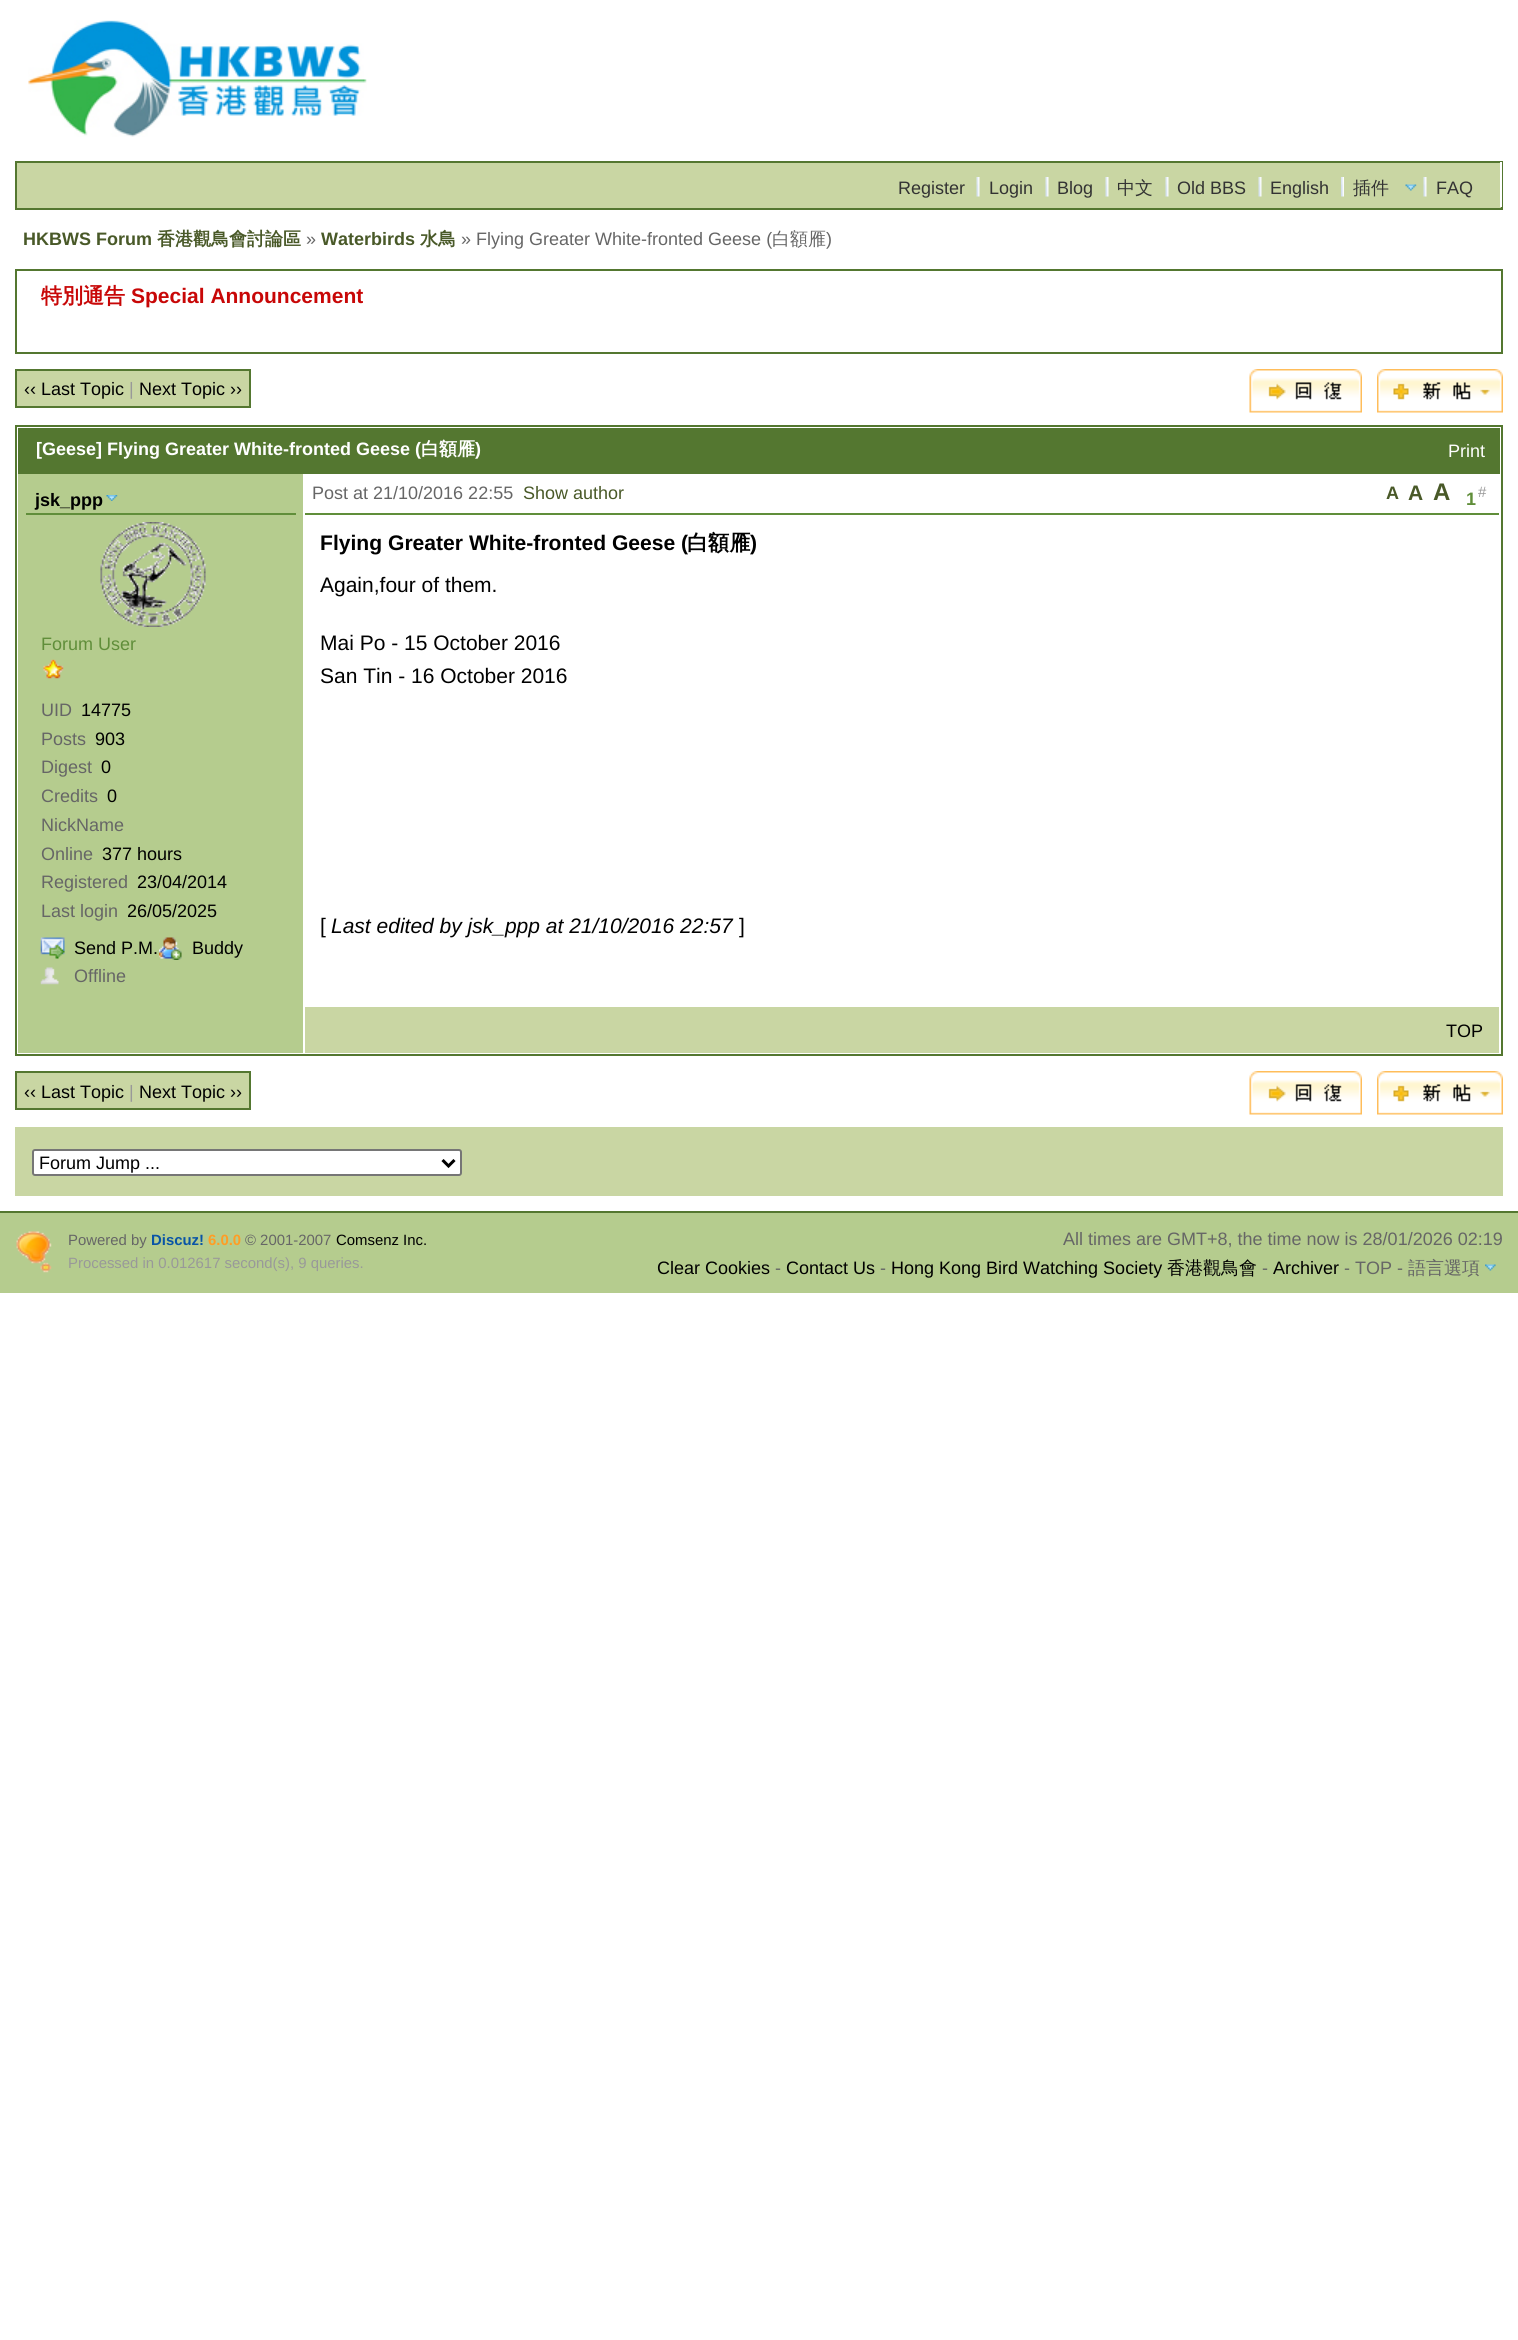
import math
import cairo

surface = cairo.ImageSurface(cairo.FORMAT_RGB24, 1518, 2340)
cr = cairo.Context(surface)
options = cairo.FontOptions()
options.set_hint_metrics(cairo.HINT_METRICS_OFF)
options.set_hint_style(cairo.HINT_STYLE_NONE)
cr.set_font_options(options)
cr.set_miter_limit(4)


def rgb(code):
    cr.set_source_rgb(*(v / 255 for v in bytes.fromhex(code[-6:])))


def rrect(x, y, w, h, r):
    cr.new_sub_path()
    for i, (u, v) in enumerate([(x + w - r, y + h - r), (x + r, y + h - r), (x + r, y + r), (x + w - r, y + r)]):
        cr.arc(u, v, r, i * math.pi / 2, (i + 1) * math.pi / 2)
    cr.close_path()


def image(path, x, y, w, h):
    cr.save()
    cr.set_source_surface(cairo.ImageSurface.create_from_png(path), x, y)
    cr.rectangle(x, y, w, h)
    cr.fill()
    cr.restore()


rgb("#ffffff")
cr.paint()
image("img/1.png", 28, 20, 339, 117)
rgb("#c9d6a3")
cr.rectangle(16, 162, 1486, 47)
cr.fill_preserve()
rgb("#547730")
cr.stroke()
rgb("#ffffff")
cr.rectangle(1500, 162, 2, 45)
cr.fill()
image("img/2.png", 976, 177, 4, 20)
image("img/2.png", 1045, 177, 4, 20)
image("img/2.png", 1105, 177, 4, 20)
image("img/2.png", 1165, 177, 4, 20)
image("img/2.png", 1258, 177, 4, 20)
image("img/3.png", 1405, 184, 12, 7)
image("img/4.png", 1341, 177, 3, 20)
image("img/2.png", 1423, 177, 4, 20)
cr.rectangle(16, 270, 1486, 83)
rgb("#547730")
cr.stroke()
rgb("#c9d6a3")
cr.rectangle(16, 370, 234, 37)
cr.fill_preserve()
rgb("#547730")
cr.stroke()
image("img/5.png", 1249, 369, 113, 44)
image("img/6.png", 1377, 369, 126, 44)
cr.rectangle(16, 426, 1486, 629)
cr.stroke()
for x, y, w, h, color in [
    (18, 428, 1482, 46, "#547730"),
    (18, 474, 285, 579, "#b5cc8e"),
    (26, 513, 270, 2, "#608e3a"),
]:
    rgb(color)
    cr.rectangle(x, y, w, h)
    cr.fill()
image("img/7.png", 106, 495, 12, 6)
image("img/8.png", 100, 522, 106, 105)
image("img/9.png", 43, 659, 21, 20)
image("img/10.png", 40, 937, 25, 22)
image("img/11.png", 159, 937, 23, 23)
image("img/12.png", 40, 967, 19, 18)
cr.rectangle(305, 513, 1194, 2)
cr.fill()
rgb("#c9d6a3")
cr.rectangle(305, 1007, 1194, 46)
cr.fill()
cr.rectangle(16, 1072, 234, 37)
cr.fill_preserve()
rgb("#547730")
cr.stroke()
image("img/5.png", 1249, 1071, 113, 44)
image("img/6.png", 1377, 1071, 126, 44)
rgb("#c9d6a3")
cr.rectangle(15, 1127, 1488, 69)
cr.fill()
rgb("#ffffff")
rrect(33, 1150, 428, 25, 2)
cr.fill_preserve()
rgb("#767676")
cr.stroke()
cr.new_path()
cr.move_to(442.5, 1160)
cr.line_to(448.5, 1166)
cr.line_to(454.5, 1160)
rgb("#000000")
cr.set_line_width(3)
cr.stroke()
rgb("#b5cc8e")
cr.rectangle(0, 1213, 1518, 80)
cr.fill()
rgb("#547730")
cr.rectangle(0, 1211, 1518, 2)
cr.fill()
image("img/13.png", 16, 1231, 36, 42)
image("img/14.png", 1485, 1264, 11, 7)
cr.select_font_face("Liberation Sans")
cr.set_font_size(18)
rgb("#333333")
for x, y, s in [
    (898, 194, "Register"),
    (989, 194, "Login"),
    (1057, 194, "Blog"),
]:
    cr.move_to(x, y)
    cr.show_text(s)
cr.select_font_face("WenQuanYi Zen Hei Medium")
cr.move_to(1117, 194)
cr.show_text("中文")
cr.select_font_face("Liberation Sans")
cr.move_to(1177, 194)
cr.show_text("Old BBS")
cr.move_to(1270, 194)
cr.show_text("English")
cr.select_font_face("WenQuanYi Zen Hei Medium")
cr.move_to(1353, 194)
cr.show_text("插件")
cr.select_font_face("Liberation Sans")
cr.move_to(1436, 194)
cr.show_text("FAQ")
cr.select_font_face("Liberation Sans", cairo.FONT_SLANT_NORMAL, cairo.FONT_WEIGHT_BOLD)
rgb("#495928")
cr.move_to(23, 245)
cr.show_text("HKBWS Forum")
cr.select_font_face("WenQuanYi Zen Hei", cairo.FONT_SLANT_NORMAL, cairo.FONT_WEIGHT_BOLD)
cr.move_to(157, 245)
cr.show_text("香港觀鳥會討論區")
cr.select_font_face("Liberation Sans")
rgb("#666666")
cr.move_to(306, 245)
cr.show_text("»")
cr.select_font_face("Liberation Sans", cairo.FONT_SLANT_NORMAL, cairo.FONT_WEIGHT_BOLD)
rgb("#495928")
cr.move_to(321, 245)
cr.show_text("Waterbirds")
cr.select_font_face("WenQuanYi Zen Hei", cairo.FONT_SLANT_NORMAL, cairo.FONT_WEIGHT_BOLD)
cr.move_to(420, 245)
cr.show_text("水鳥")
cr.select_font_face("Liberation Sans")
rgb("#666666")
cr.move_to(461, 245)
cr.show_text("» Flying Greater White-fronted Geese (")
cr.select_font_face("WenQuanYi Zen Hei Medium")
cr.move_to(772, 245)
cr.show_text("白額雁")
cr.select_font_face("Liberation Sans")
cr.move_to(826, 245)
cr.show_text(")")
cr.select_font_face("WenQuanYi Zen Hei", cairo.FONT_SLANT_NORMAL, cairo.FONT_WEIGHT_BOLD)
cr.set_font_size(21)
rgb("#c80707")
cr.move_to(41, 303)
cr.show_text("特別通告")
cr.select_font_face("Liberation Sans", cairo.FONT_SLANT_NORMAL, cairo.FONT_WEIGHT_BOLD)
cr.move_to(131, 303)
cr.show_text("Special Announcement")
cr.select_font_face("Liberation Sans")
cr.set_font_size(18)
rgb("#000000")
cr.move_to(24, 395)
cr.show_text("‹‹ Last Topic")
rgb("#999999")
cr.move_to(129, 395)
cr.show_text("|")
rgb("#000000")
cr.move_to(139, 395)
cr.show_text("Next Topic ››")
cr.select_font_face("Liberation Sans", cairo.FONT_SLANT_NORMAL, cairo.FONT_WEIGHT_BOLD)
rgb("#ffffff")
cr.move_to(36, 455)
cr.show_text("[Geese] Flying Greater White-fronted Geese (")
cr.select_font_face("WenQuanYi Zen Hei", cairo.FONT_SLANT_NORMAL, cairo.FONT_WEIGHT_BOLD)
cr.move_to(421, 455)
cr.show_text("白額雁")
cr.select_font_face("Liberation Sans", cairo.FONT_SLANT_NORMAL, cairo.FONT_WEIGHT_BOLD)
cr.move_to(475, 455)
cr.show_text(")")
cr.select_font_face("Liberation Sans")
cr.move_to(1448, 457)
cr.show_text("Print")
cr.select_font_face("Liberation Sans", cairo.FONT_SLANT_NORMAL, cairo.FONT_WEIGHT_BOLD)
rgb("#000000")
cr.move_to(35, 506)
cr.show_text("jsk_ppp")
cr.select_font_face("Liberation Sans")
rgb("#608e3a")
cr.move_to(41, 650)
cr.show_text("Forum User")
rgb("#666666")
cr.move_to(41, 716)
cr.show_text("UID")
rgb("#000000")
cr.move_to(81, 716)
cr.show_text("14775")
rgb("#666666")
cr.move_to(41, 745)
cr.show_text("Posts")
rgb("#000000")
cr.move_to(95, 745)
cr.show_text("903")
rgb("#666666")
cr.move_to(41, 773)
cr.show_text("Digest")
rgb("#000000")
cr.move_to(101, 773)
cr.show_text("0")
rgb("#666666")
cr.move_to(41, 802)
cr.show_text("Credits")
rgb("#000000")
cr.move_to(107, 802)
cr.show_text("0")
rgb("#666666")
cr.move_to(41, 831)
cr.show_text("NickName")
cr.move_to(41, 860)
cr.show_text("Online")
rgb("#000000")
cr.move_to(102, 860)
cr.show_text("377 hours")
rgb("#666666")
cr.move_to(41, 888)
cr.show_text("Registered")
rgb("#000000")
cr.move_to(137, 888)
cr.show_text("23/04/2014")
rgb("#666666")
cr.move_to(41, 917)
cr.show_text("Last login")
cr.save()
cr.rectangle(128, 899, 153, 28)
cr.clip()
rgb("#000000")
cr.move_to(127, 917)
cr.show_text("26/05/2025")
cr.restore()
rgb("#000000")
cr.move_to(74, 954)
cr.show_text("Send P.M.")
cr.move_to(192, 954)
cr.show_text("Buddy")
rgb("#666666")
cr.move_to(74, 982)
cr.show_text("Offline")
cr.move_to(312, 499)
cr.show_text("Post at 21/10/2016 22:55")
rgb("#495928")
cr.move_to(523, 499)
cr.show_text("Show author")
cr.select_font_face("Liberation Sans", cairo.FONT_SLANT_NORMAL, cairo.FONT_WEIGHT_BOLD)
cr.move_to(1386, 499)
cr.show_text("A")
cr.set_font_size(21)
cr.move_to(1408, 500)
cr.show_text("A")
cr.set_font_size(24)
cr.move_to(1433, 500)
cr.show_text("A")
cr.set_font_size(18)
rgb("#608e3a")
cr.move_to(1466, 505)
cr.show_text("1")
cr.select_font_face("Liberation Sans")
cr.set_font_size(15)
rgb("#999999")
cr.move_to(1478, 497)
cr.show_text("#")
cr.select_font_face("Liberation Sans", cairo.FONT_SLANT_NORMAL, cairo.FONT_WEIGHT_BOLD)
cr.set_font_size(21.1)
rgb("#000000")
cr.move_to(320, 550)
cr.show_text("Flying Greater White-fronted Geese (")
cr.select_font_face("WenQuanYi Zen Hei", cairo.FONT_SLANT_NORMAL, cairo.FONT_WEIGHT_BOLD)
cr.move_to(687, 550)
cr.show_text("白額雁")
cr.select_font_face("Liberation Sans", cairo.FONT_SLANT_NORMAL, cairo.FONT_WEIGHT_BOLD)
cr.move_to(750, 550)
cr.show_text(")")
cr.select_font_face("Liberation Sans")
cr.set_font_size(21)
for x, y, s in [
    (320, 592, "Again,four of them."),
    (320, 650, "Mai Po - 15 October 2016"),
    (320, 683, "San Tin - 16 October 2016"),
    (320, 933, "["),
]:
    cr.move_to(x, y)
    cr.show_text(s)
cr.select_font_face("Liberation Sans", cairo.FONT_SLANT_ITALIC)
cr.move_to(331, 933)
cr.show_text("Last edited by jsk_ppp at 21/10/2016 22:57")
cr.select_font_face("Liberation Sans")
cr.move_to(739, 933)
cr.show_text("]")
cr.set_font_size(18)
cr.move_to(1446, 1037)
cr.show_text("TOP")
cr.move_to(24, 1098)
cr.show_text("‹‹ Last Topic")
rgb("#999999")
cr.move_to(129, 1098)
cr.show_text("|")
rgb("#000000")
cr.move_to(139, 1098)
cr.show_text("Next Topic ››")
cr.move_to(39, 1169)
cr.show_text("Forum Jump ...")
cr.set_font_size(14.9)
rgb("#666666")
cr.move_to(68, 1245)
cr.show_text("Powered by")
cr.select_font_face("Liberation Sans", cairo.FONT_SLANT_NORMAL, cairo.FONT_WEIGHT_BOLD)
rgb("#0954a6")
cr.move_to(151, 1245)
cr.show_text("Discuz!")
rgb("#ff9d25")
cr.move_to(208, 1245)
cr.show_text("6.0.0")
cr.select_font_face("Liberation Sans")
rgb("#666666")
cr.move_to(245, 1245)
cr.show_text("© 2001-2007")
rgb("#000000")
cr.move_to(336, 1245)
cr.show_text("Comsenz Inc.")
cr.set_font_size(18)
rgb("#666666")
cr.move_to(1063, 1245)
cr.show_text("All times are GMT+8, the time now is 28/01/2026 02:19")
rgb("#000000")
cr.move_to(657, 1274)
cr.show_text("Clear Cookies")
rgb("#666666")
cr.move_to(775, 1274)
cr.show_text("-")
rgb("#000000")
cr.move_to(786, 1274)
cr.show_text("Contact Us")
rgb("#666666")
cr.move_to(880, 1274)
cr.show_text("-")
rgb("#000000")
cr.move_to(891, 1274)
cr.show_text("Hong Kong Bird Watching Society")
cr.select_font_face("WenQuanYi Zen Hei Medium")
cr.move_to(1167, 1274)
cr.show_text("香港觀鳥會")
cr.select_font_face("Liberation Sans")
rgb("#666666")
cr.move_to(1262, 1274)
cr.show_text("-")
rgb("#000000")
cr.move_to(1273, 1274)
cr.show_text("Archiver")
rgb("#666666")
cr.move_to(1344, 1274)
cr.show_text("- TOP -")
cr.select_font_face("WenQuanYi Zen Hei Medium")
cr.move_to(1408, 1274)
cr.show_text("語言選項")
cr.select_font_face("Liberation Sans")
cr.set_font_size(14.9)
rgb("#999999")
cr.move_to(68, 1268)
cr.show_text("Processed in 0.012617 second(s), 9 queries.")
surface.write_to_png("page.png")
